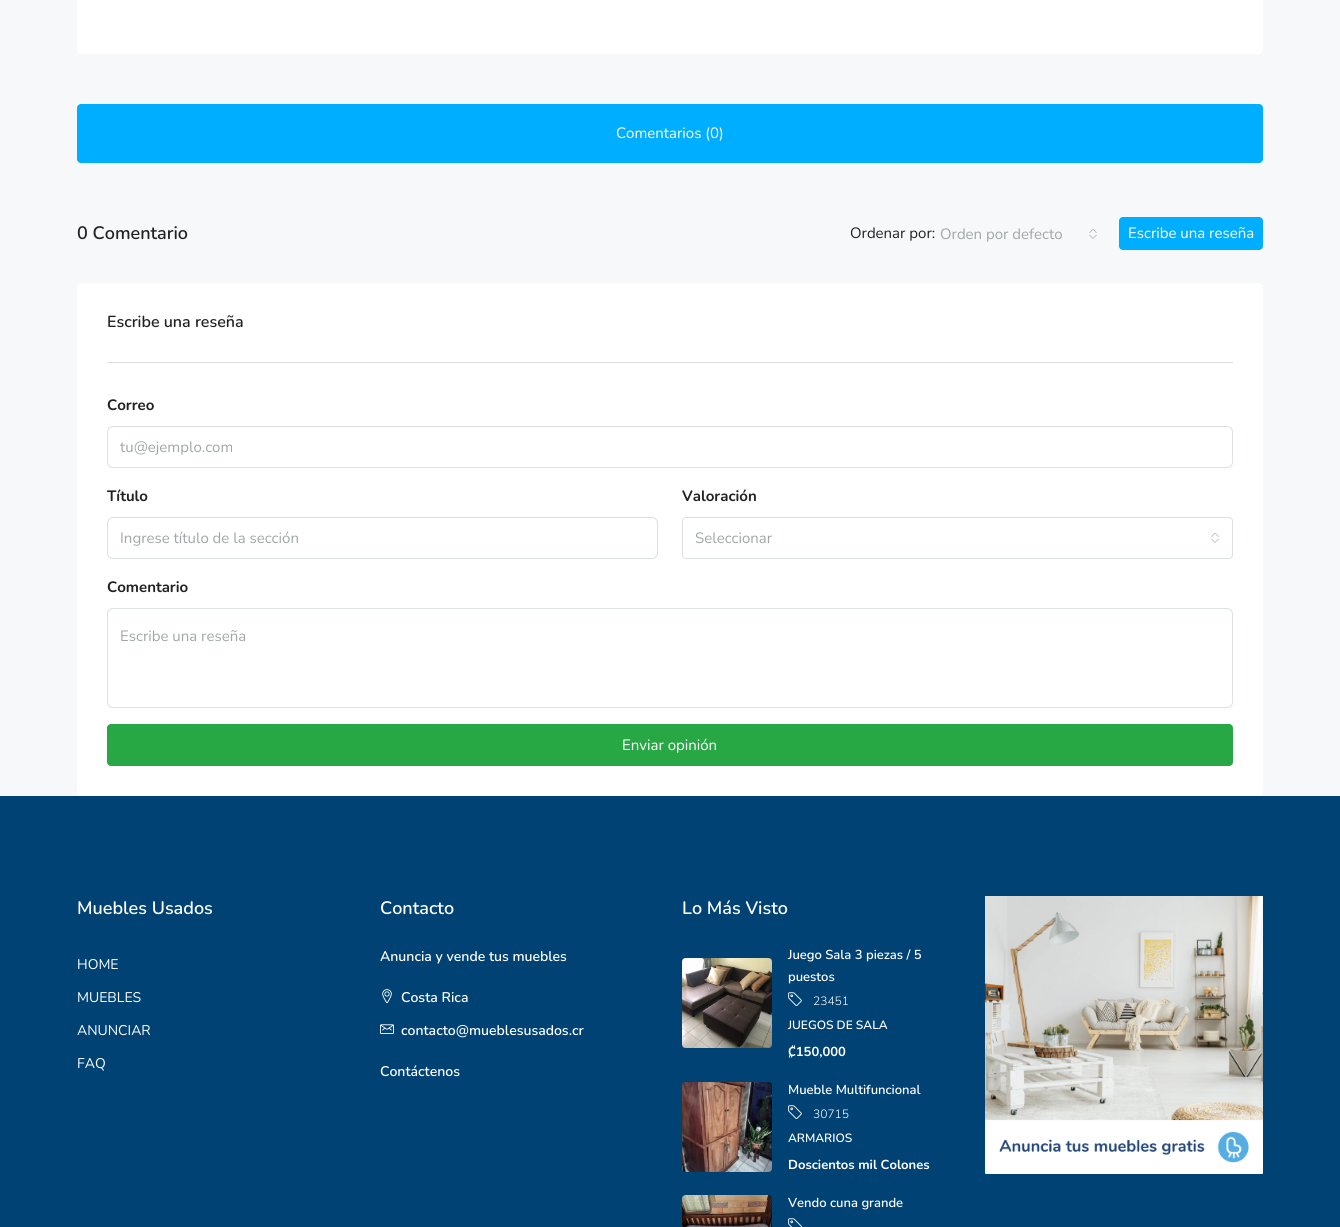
import math
import cairo

surface = cairo.ImageSurface(cairo.FORMAT_RGB24, 1340, 1227)
cr = cairo.Context(surface)
options = cairo.FontOptions()
options.set_hint_metrics(cairo.HINT_METRICS_OFF)
options.set_hint_style(cairo.HINT_STYLE_NONE)
cr.set_font_options(options)
cr.set_miter_limit(4)


def rgb(code):
    cr.set_source_rgb(*(v / 255 for v in bytes.fromhex(code[-6:])))


def rrect(x, y, w, h, r):
    cr.new_sub_path()
    for i, (u, v) in enumerate([(x + w - r, y + h - r), (x + r, y + h - r), (x + r, y + r), (x + w - r, y + r)]):
        cr.arc(u, v, r, i * math.pi / 2, (i + 1) * math.pi / 2)
    cr.close_path()


def image(path, x, y, w, h):
    cr.save()
    cr.set_source_surface(cairo.ImageSurface.create_from_png(path), x, y)
    cr.rectangle(x, y, w, h)
    cr.fill()
    cr.restore()


rgb("#f7f8f9")
cr.paint()
rgb("#ffffff")
rrect(77, -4, 1186, 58, 4)
cr.fill()
rgb("#00aeff")
rrect(77.5, 104.5, 1185, 58, 3.5)
cr.fill_preserve()
cr.set_line_width(1)
cr.stroke()
image("img/1.png", 1089, 229, 8, 10)
rrect(1119.5, 217.5, 143, 32, 3.5)
cr.fill_preserve()
cr.stroke()
rgb("#ffffff")
rrect(77, 283, 1186, 513, 4)
cr.fill()
rgb("#dce0e0")
cr.rectangle(107, 362, 1126, 1)
cr.fill()
rrect(107.5, 426.5, 1125, 41, 5.5)
cr.stroke()
rrect(107.5, 517.5, 550, 41, 5.5)
cr.stroke()
rrect(682.5, 517.5, 550, 41, 3.5)
cr.stroke()
image("img/2.png", 1211, 533, 8, 10)
rrect(107.5, 608.5, 1125, 99, 5.5)
cr.stroke()
rgb("#28a745")
rrect(107.5, 724.5, 1125, 41, 3.5)
cr.fill_preserve()
cr.stroke()
rgb("#004274")
cr.rectangle(0, 796, 1340, 431)
cr.fill()
image("img/3.png", 382, 989, 10, 15)
image("img/4.png", 380, 1024, 14, 10)
image("img/5.png", 682, 958, 90, 90)
image("img/6.png", 788, 992, 14, 14)
image("img/7.png", 682, 1082, 90, 90)
image("img/6.png", 788, 1105, 14, 14)
image("img/8.png", 682, 1195, 90, 32)
image("img/9.png", 788, 1218, 14, 9)
image("img/10.png", 985, 896, 278, 278)
cr.select_font_face("Nunito")
cr.set_font_size(15)
rgb("#ffffff")
cr.move_to(616, 138)
cr.show_text("Comentarios (0)")
cr.select_font_face("Nunito SemiBold")
cr.set_font_size(18)
rgb("#222222")
cr.move_to(77, 239)
cr.show_text("0 Comentario")
cr.select_font_face("Nunito")
cr.set_font_size(15)
cr.move_to(850, 238)
cr.show_text("Ordenar por:")
rgb("#a1a7a8")
cr.move_to(940, 239)
cr.show_text("Orden por defecto")
rgb("#ffffff")
cr.move_to(1128, 238)
cr.show_text("Escribe una reseña")
cr.select_font_face("Nunito SemiBold")
cr.set_font_size(16)
rgb("#222222")
cr.move_to(107, 327)
cr.show_text("Escribe una reseña")
cr.select_font_face("Nunito", cairo.FONT_SLANT_NORMAL, cairo.FONT_WEIGHT_BOLD)
cr.set_font_size(15)
cr.move_to(107, 410)
cr.show_text("Correo")
cr.select_font_face("Nunito")
rgb("#a1a7a8")
cr.move_to(120, 452)
cr.show_text("tu@ejemplo.com")
cr.select_font_face("Nunito", cairo.FONT_SLANT_NORMAL, cairo.FONT_WEIGHT_BOLD)
rgb("#222222")
cr.move_to(107, 501)
cr.show_text("Título")
cr.select_font_face("Nunito")
rgb("#a1a7a8")
cr.move_to(120, 543)
cr.show_text("Ingrese título de la sección")
cr.select_font_face("Nunito", cairo.FONT_SLANT_NORMAL, cairo.FONT_WEIGHT_BOLD)
rgb("#222222")
cr.move_to(682, 501)
cr.show_text("Valoración")
cr.select_font_face("Nunito")
rgb("#a1a7a8")
cr.move_to(695, 543)
cr.show_text("Seleccionar")
cr.select_font_face("Nunito", cairo.FONT_SLANT_NORMAL, cairo.FONT_WEIGHT_BOLD)
rgb("#222222")
cr.move_to(107, 592)
cr.show_text("Comentario")
cr.select_font_face("Nunito")
rgb("#a1a7a8")
cr.move_to(120, 641)
cr.show_text("Escribe una reseña")
rgb("#ffffff")
cr.move_to(622, 750)
cr.show_text("Enviar opinión")
cr.select_font_face("Nunito SemiBold")
cr.set_font_size(18)
cr.move_to(77, 914)
cr.show_text("Muebles Usados")
cr.select_font_face("Nunito")
cr.set_font_size(14)
for x, y, s in [
    (77, 969, "HOME"),
    (77, 1002, "MUEBLES"),
    (77, 1035, "ANUNCIAR"),
    (77, 1068, "FAQ"),
]:
    cr.move_to(x, y)
    cr.show_text(s)
cr.select_font_face("Nunito SemiBold")
cr.set_font_size(18)
cr.move_to(380, 914)
cr.show_text("Contacto")
cr.set_font_size(14)
for x, y, s in [
    (380, 961, "Anuncia y vende tus muebles"),
    (401, 1002, "Costa Rica"),
    (401, 1035, "contacto@mueblesusados.cr"),
    (380, 1076, "Contáctenos"),
]:
    cr.move_to(x, y)
    cr.show_text(s)
cr.set_font_size(18)
cr.move_to(682, 914)
cr.show_text("Lo Más Visto")
cr.set_font_size(13)
cr.move_to(788, 959)
cr.show_text("Juego Sala 3 piezas / 5")
cr.move_to(788, 981)
cr.show_text("puestos")
cr.select_font_face("Nunito Light")
cr.set_font_size(12)
cr.move_to(813, 1005)
cr.show_text("23451")
cr.select_font_face("Nunito SemiBold")
cr.move_to(788, 1029)
cr.show_text("JUEGOS DE SALA")
cr.select_font_face("Nunito", cairo.FONT_SLANT_NORMAL, cairo.FONT_WEIGHT_BOLD)
cr.set_font_size(13)
cr.move_to(788, 1056)
cr.show_text("₡150,000")
cr.select_font_face("Nunito SemiBold")
cr.move_to(788, 1094)
cr.show_text("Mueble Multifuncional")
cr.select_font_face("Nunito Light")
cr.set_font_size(12)
cr.move_to(813, 1118)
cr.show_text("30715")
cr.select_font_face("Nunito SemiBold")
cr.move_to(788, 1142)
cr.show_text("ARMARIOS")
cr.select_font_face("Nunito", cairo.FONT_SLANT_NORMAL, cairo.FONT_WEIGHT_BOLD)
cr.set_font_size(13)
cr.move_to(788, 1169)
cr.show_text("Doscientos mil Colones")
cr.select_font_face("Nunito SemiBold")
cr.move_to(788, 1207)
cr.show_text("Vendo cuna grande")
surface.write_to_png("page.png")
